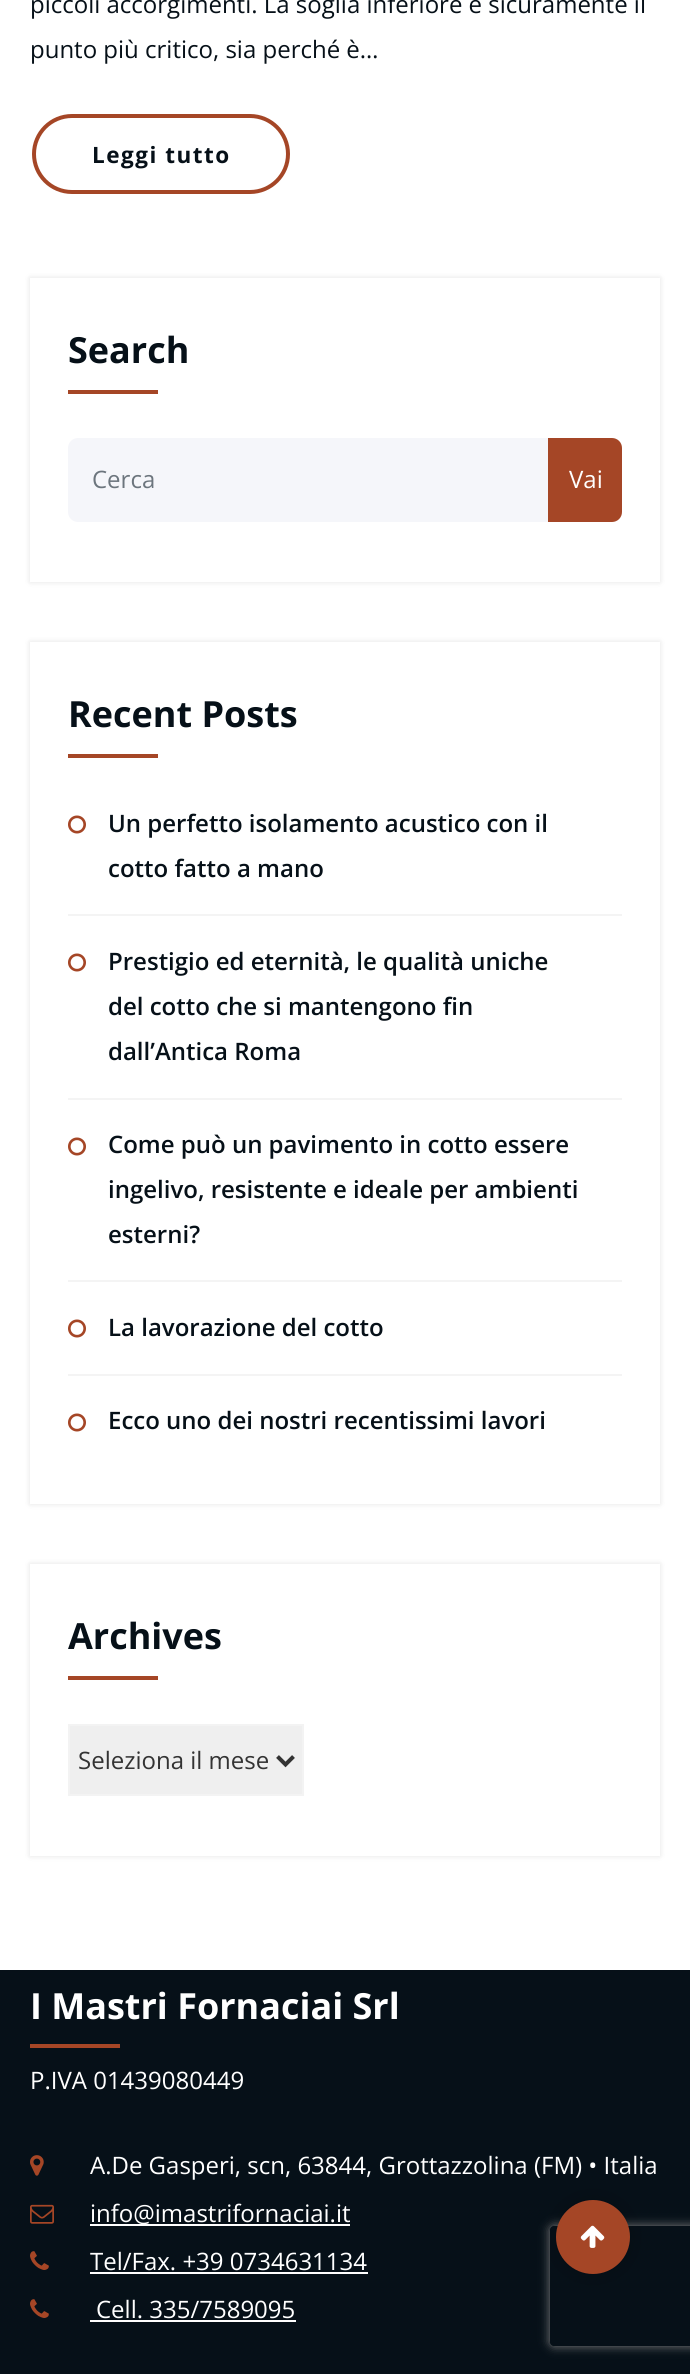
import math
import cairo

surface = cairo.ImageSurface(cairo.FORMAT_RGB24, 690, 2374)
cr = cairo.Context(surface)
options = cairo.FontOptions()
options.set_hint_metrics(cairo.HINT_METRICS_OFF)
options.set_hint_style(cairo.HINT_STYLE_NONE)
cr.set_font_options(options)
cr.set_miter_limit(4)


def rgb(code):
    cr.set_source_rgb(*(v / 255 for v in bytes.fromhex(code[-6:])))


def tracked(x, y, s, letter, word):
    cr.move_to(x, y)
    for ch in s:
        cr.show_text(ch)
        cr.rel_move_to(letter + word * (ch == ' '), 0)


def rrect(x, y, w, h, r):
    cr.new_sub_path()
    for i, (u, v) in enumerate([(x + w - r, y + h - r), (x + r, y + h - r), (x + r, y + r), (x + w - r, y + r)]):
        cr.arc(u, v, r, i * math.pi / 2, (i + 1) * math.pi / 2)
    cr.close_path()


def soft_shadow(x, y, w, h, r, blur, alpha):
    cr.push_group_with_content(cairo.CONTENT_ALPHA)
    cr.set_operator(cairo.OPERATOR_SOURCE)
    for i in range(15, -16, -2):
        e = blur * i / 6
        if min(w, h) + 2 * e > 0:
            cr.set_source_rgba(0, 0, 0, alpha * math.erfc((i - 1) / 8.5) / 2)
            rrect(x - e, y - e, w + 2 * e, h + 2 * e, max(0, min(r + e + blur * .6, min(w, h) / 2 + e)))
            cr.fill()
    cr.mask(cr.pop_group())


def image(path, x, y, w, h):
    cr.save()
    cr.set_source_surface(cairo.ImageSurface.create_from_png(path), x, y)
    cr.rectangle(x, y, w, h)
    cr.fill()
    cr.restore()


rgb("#ffffff")
cr.paint()
rrect(34, 116, 254, 76, 38)
rgb("#a54626")
cr.set_line_width(4)
cr.stroke()
cr.save()
cr.set_fill_rule(cairo.FILL_RULE_EVEN_ODD)
cr.new_path()
cr.move_to(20, 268)
cr.line_to(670, 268)
cr.line_to(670, 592)
cr.line_to(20, 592)
cr.close_path()
cr.move_to(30, 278)
cr.line_to(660, 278)
cr.line_to(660, 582)
cr.line_to(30, 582)
cr.close_path()
cr.clip()
rgb("#000000")
soft_shadow(30, 278, 630, 304, 0, 3, 0.11)
cr.restore()
cr.rectangle(68, 390, 90, 4)
cr.fill()
rgb("#f5f6fa")
cr.new_path()
cr.move_to(78, 438)
cr.line_to(550, 438)
cr.line_to(550, 522)
cr.line_to(78, 522)
cr.curve_to(72.5, 522, 68, 517.5, 68, 512)
cr.line_to(68, 448)
cr.curve_to(68, 442.5, 72.5, 438, 78, 438)
cr.close_path()
cr.fill()
rgb("#a54626")
cr.new_path()
cr.move_to(549, 439)
cr.line_to(612, 439)
cr.curve_to(617, 439, 621, 443, 621, 448)
cr.line_to(621, 512)
cr.curve_to(621, 517, 617, 521, 612, 521)
cr.line_to(549, 521)
cr.close_path()
cr.fill_preserve()
cr.set_line_width(2)
cr.stroke()
cr.save()
cr.set_fill_rule(cairo.FILL_RULE_EVEN_ODD)
cr.new_path()
cr.move_to(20, 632)
cr.line_to(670, 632)
cr.line_to(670, 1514)
cr.line_to(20, 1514)
cr.close_path()
cr.move_to(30, 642)
cr.line_to(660, 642)
cr.line_to(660, 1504)
cr.line_to(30, 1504)
cr.close_path()
cr.clip()
rgb("#000000")
soft_shadow(30, 642, 630, 862, 0, 3, 0.11)
cr.restore()
cr.rectangle(68, 754, 90, 4)
cr.fill()
rgb("#f4f4f4")
cr.rectangle(68, 914, 554, 2)
cr.fill()
image("img/1.png", 68, 815, 18, 19)
cr.rectangle(68, 1098, 554, 2)
cr.fill()
image("img/1.png", 68, 953, 18, 19)
cr.rectangle(68, 1280, 554, 2)
cr.fill()
image("img/1.png", 68, 1137, 18, 19)
cr.rectangle(68, 1374, 554, 2)
cr.fill()
image("img/1.png", 68, 1319, 18, 19)
image("img/1.png", 68, 1413, 18, 19)
cr.save()
cr.set_fill_rule(cairo.FILL_RULE_EVEN_ODD)
cr.new_path()
cr.move_to(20, 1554)
cr.line_to(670, 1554)
cr.line_to(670, 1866)
cr.line_to(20, 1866)
cr.close_path()
cr.move_to(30, 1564)
cr.line_to(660, 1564)
cr.line_to(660, 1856)
cr.line_to(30, 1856)
cr.close_path()
cr.clip()
rgb("#000000")
soft_shadow(30, 1564, 630, 292, 0, 3, 0.11)
cr.restore()
rgb("#a54626")
cr.rectangle(68, 1676, 90, 4)
cr.fill()
rgb("#efefef")
cr.rectangle(69, 1725, 234, 70)
cr.fill_preserve()
rgb("#f3f3f3")
cr.stroke()
cr.new_path()
cr.move_to(277.5, 1756.5)
cr.line_to(285.5, 1764.5)
cr.line_to(293.5, 1756.5)
rgb("#333333")
cr.set_line_width(4)
cr.stroke()
rgb("#061018")
cr.rectangle(0, 1970, 690, 404)
cr.fill()
rgb("#a54626")
cr.rectangle(30, 2044, 90, 4)
cr.fill()
image("img/2.png", 30, 2155, 14, 21)
image("img/3.png", 30, 2204, 24, 20)
rgb("#ffffff")
cr.rectangle(90, 2224, 260, 2)
cr.fill()
image("img/4.png", 30, 2251, 19, 19)
cr.rectangle(90, 2272, 278, 2)
cr.fill()
image("img/4.png", 30, 2299, 19, 19)
cr.rectangle(90, 2320, 206, 2)
cr.fill()
rgb("#000000")
soft_shadow(556, 2200, 74, 74, 37, 10, 0.2)
cr.save()
cr.set_fill_rule(cairo.FILL_RULE_EVEN_ODD)
cr.new_path()
cr.move_to(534, 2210)
cr.line_to(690, 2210)
cr.line_to(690, 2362)
cr.line_to(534, 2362)
cr.close_path()
cr.move_to(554, 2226)
cr.line_to(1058, 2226)
cr.curve_to(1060, 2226, 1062, 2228, 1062, 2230)
cr.line_to(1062, 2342)
cr.curve_to(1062, 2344, 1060, 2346, 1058, 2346)
cr.line_to(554, 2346)
cr.curve_to(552, 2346, 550, 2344, 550, 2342)
cr.line_to(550, 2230)
cr.curve_to(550, 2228, 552, 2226, 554, 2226)
cr.close_path()
cr.clip()
rgb("#808080")
soft_shadow(550, 2226, 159, 120, 4, 5, 1)
cr.restore()
rgb("#a54626")
cr.arc(593, 2237, 37, 0, 2 * math.pi)
cr.fill()
image("img/5.png", 580, 2225, 25, 23)
cr.select_font_face("Open Sans")
cr.set_font_size(24)
rgb("#061018")
cr.move_to(30, 13)
cr.show_text("piccoli accorgimenti. La soglia inferiore è sicuramente il")
cr.move_to(30, 58)
cr.show_text("punto più critico, sia perché è…")
cr.select_font_face("Open Sans", cairo.FONT_SLANT_NORMAL, cairo.FONT_WEIGHT_BOLD)
cr.set_font_size(22.5)
tracked(92, 163, "Leggi tutto", 1.5, 0)
cr.set_font_size(36)
cr.move_to(68, 363)
cr.show_text("Search")
cr.select_font_face("Open Sans")
cr.set_font_size(24)
rgb("#6c757d")
cr.move_to(92, 488)
cr.show_text("Cerca")
rgb("#ffffff")
cr.move_to(569, 488)
cr.show_text("Vai")
cr.select_font_face("Open Sans", cairo.FONT_SLANT_NORMAL, cairo.FONT_WEIGHT_BOLD)
cr.set_font_size(36)
rgb("#061018")
cr.move_to(68, 727)
cr.show_text("Recent Posts")
cr.select_font_face("Open Sans SemiBold")
cr.set_font_size(24)
for x, y, s in [
    (108, 832, "Un perfetto isolamento acustico con il"),
    (108, 877, "cotto fatto a mano"),
    (108, 970, "Prestigio ed eternità, le qualità uniche"),
    (108, 1015, "del cotto che si mantengono fin"),
    (108, 1060, "dall’Antica Roma"),
    (108, 1153, "Come può un pavimento in cotto essere"),
    (108, 1198, "ingelivo, resistente e ideale per ambienti"),
    (108, 1243, "esterni?"),
    (108, 1336, "La lavorazione del cotto"),
    (108, 1429, "Ecco uno dei nostri recentissimi lavori"),
]:
    cr.move_to(x, y)
    cr.show_text(s)
cr.select_font_face("Open Sans", cairo.FONT_SLANT_NORMAL, cairo.FONT_WEIGHT_BOLD)
cr.set_font_size(36)
cr.move_to(68, 1649)
cr.show_text("Archives")
cr.select_font_face("Open Sans")
cr.set_font_size(24)
rgb("#333333")
cr.move_to(78, 1769)
cr.show_text("Seleziona il mese")
cr.select_font_face("Open Sans", cairo.FONT_SLANT_NORMAL, cairo.FONT_WEIGHT_BOLD)
cr.set_font_size(36)
rgb("#ffffff")
cr.move_to(30, 2019)
cr.show_text("I Mastri Fornaciai Srl")
cr.select_font_face("Open Sans")
cr.set_font_size(24)
for x, y, s in [
    (30, 2089, "P.IVA 01439080449"),
    (90, 2174, "A.De Gasperi, scn, 63844, Grottazzolina (FM) • Italia"),
    (90, 2222, "info@imastrifornaciai.it"),
    (90, 2270, "Tel/Fax. +39 0734631134"),
    (96, 2318, "Cell. 335/7589095"),
]:
    cr.move_to(x, y)
    cr.show_text(s)
surface.write_to_png("page.png")
